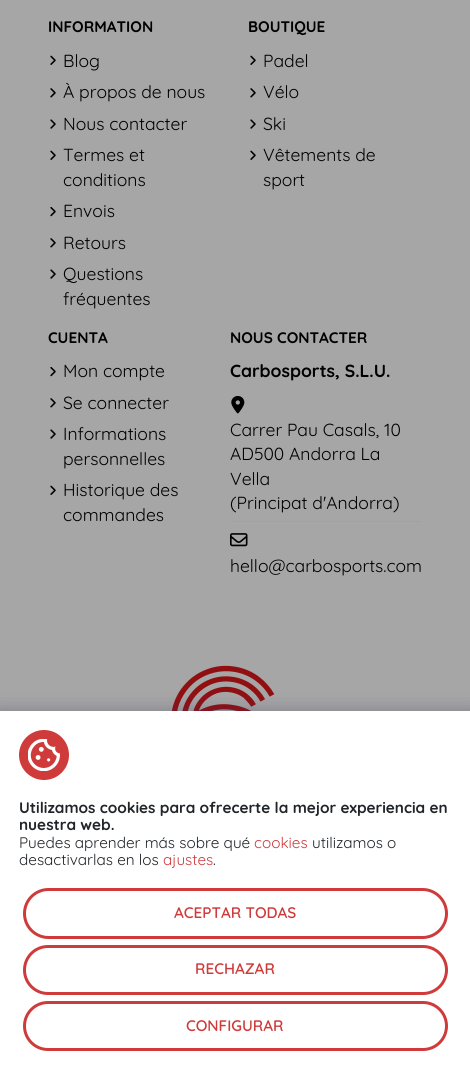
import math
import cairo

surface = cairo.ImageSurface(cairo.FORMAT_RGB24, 470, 1070)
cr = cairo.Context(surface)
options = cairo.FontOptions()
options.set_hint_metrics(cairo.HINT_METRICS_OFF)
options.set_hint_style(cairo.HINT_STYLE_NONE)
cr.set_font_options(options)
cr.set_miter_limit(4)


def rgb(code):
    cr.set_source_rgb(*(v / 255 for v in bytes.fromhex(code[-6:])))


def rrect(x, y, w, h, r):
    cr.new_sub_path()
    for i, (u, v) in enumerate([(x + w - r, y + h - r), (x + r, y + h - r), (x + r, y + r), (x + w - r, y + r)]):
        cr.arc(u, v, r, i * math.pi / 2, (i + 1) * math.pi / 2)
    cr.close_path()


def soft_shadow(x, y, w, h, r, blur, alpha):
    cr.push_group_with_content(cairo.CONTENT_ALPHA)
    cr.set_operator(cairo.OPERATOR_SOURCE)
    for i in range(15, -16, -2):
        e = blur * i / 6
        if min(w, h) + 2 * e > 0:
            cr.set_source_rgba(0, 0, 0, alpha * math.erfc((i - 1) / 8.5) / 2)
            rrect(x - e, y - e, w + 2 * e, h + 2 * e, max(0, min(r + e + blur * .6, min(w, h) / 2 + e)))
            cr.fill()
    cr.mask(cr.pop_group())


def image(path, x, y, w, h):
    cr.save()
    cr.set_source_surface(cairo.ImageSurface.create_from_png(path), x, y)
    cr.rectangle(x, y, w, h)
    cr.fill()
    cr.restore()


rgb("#a6a6a6")
cr.paint()
image("img/1.png", 50, 55, 6, 10)
image("img/2.png", 50, 88, 6, 10)
image("img/3.png", 50, 119, 6, 10)
image("img/1.png", 50, 150, 6, 10)
image("img/4.png", 50, 206, 6, 11)
image("img/2.png", 50, 238, 6, 10)
image("img/3.png", 50, 269, 6, 10)
image("img/1.png", 250, 55, 6, 10)
image("img/2.png", 250, 88, 6, 10)
image("img/3.png", 250, 119, 6, 10)
image("img/1.png", 250, 150, 6, 10)
image("img/4.png", 50, 366, 6, 11)
image("img/2.png", 50, 398, 6, 10)
image("img/3.png", 50, 429, 6, 10)
image("img/1.png", 50, 485, 6, 10)
image("img/5.png", 231, 395, 14, 19)
rgb("#a2a2a2")
cr.rectangle(230, 521, 191, 1)
cr.fill()
image("img/6.png", 230, 533, 18, 14)
image("img/7.png", 171, 665, 104, 46)
rgb("#32325d")
soft_shadow(-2, 709, 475, 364, 0, 8, 0.3)
rgb("#ffffff")
cr.rectangle(0, 711, 470, 359)
cr.fill()
rgb("#cf3a3a")
cr.arc(44, 755, 25, 0, 2 * math.pi)
cr.fill()
image("img/8.png", 28, 739, 32, 32)
rrect(24.5, 889.5, 422, 48, 24)
cr.set_line_width(3)
cr.stroke()
rrect(24.5, 946.5, 422, 47, 23.5)
cr.stroke()
rrect(24.5, 1002.5, 422, 47, 23.5)
cr.stroke()
cr.select_font_face("Quicksand", cairo.FONT_SLANT_NORMAL, cairo.FONT_WEIGHT_BOLD)
cr.set_font_size(15.3)
rgb("#000000")
cr.move_to(48, 32)
cr.show_text("INFORMATION")
cr.select_font_face("Quicksand")
cr.set_font_size(17.5)
for x, y, s in [
    (63, 67, "Blog"),
    (63, 98, "À propos de nous"),
    (63, 130, "Nous contacter"),
    (63, 161, "Termes et"),
    (63, 186, "conditions"),
    (63, 217, "Envois"),
    (63, 249, "Retours"),
    (63, 280, "Questions"),
    (63, 305, "fréquentes"),
]:
    cr.move_to(x, y)
    cr.show_text(s)
cr.select_font_face("Quicksand", cairo.FONT_SLANT_NORMAL, cairo.FONT_WEIGHT_BOLD)
cr.set_font_size(15.3)
cr.move_to(248, 32)
cr.show_text("BOUTIQUE")
cr.select_font_face("Quicksand")
cr.set_font_size(17.5)
for x, y, s in [
    (263, 67, "Padel"),
    (263, 98, "Vélo"),
    (263, 130, "Ski"),
    (263, 161, "Vêtements de"),
    (263, 186, "sport"),
]:
    cr.move_to(x, y)
    cr.show_text(s)
cr.select_font_face("Quicksand", cairo.FONT_SLANT_NORMAL, cairo.FONT_WEIGHT_BOLD)
cr.set_font_size(15.3)
cr.move_to(48, 343)
cr.show_text("CUENTA")
cr.select_font_face("Quicksand")
cr.set_font_size(17.5)
for x, y, s in [
    (63, 377, "Mon compte"),
    (63, 409, "Se connecter"),
    (63, 440, "Informations"),
    (63, 465, "personnelles"),
    (63, 496, "Historique des"),
    (63, 521, "commandes"),
]:
    cr.move_to(x, y)
    cr.show_text(s)
cr.select_font_face("Quicksand", cairo.FONT_SLANT_NORMAL, cairo.FONT_WEIGHT_BOLD)
cr.set_font_size(15.3)
cr.move_to(230, 343)
cr.show_text("NOUS CONTACTER")
cr.set_font_size(17.5)
cr.move_to(230, 377)
cr.show_text("Carbosports, S.L.U.")
cr.select_font_face("Quicksand")
for x, y, s in [
    (230, 436, "Carrer Pau Casals, 10"),
    (230, 460, "AD500 Andorra La"),
    (230, 485, "Vella"),
    (230, 509, "(Principat d'Andorra)"),
    (230, 572, "hello@carbosports.com"),
]:
    cr.move_to(x, y)
    cr.show_text(s)
cr.select_font_face("Quicksand", cairo.FONT_SLANT_NORMAL, cairo.FONT_WEIGHT_BOLD)
cr.set_font_size(15.3)
rgb("#212529")
cr.move_to(19, 813)
cr.show_text("Utilizamos cookies para ofrecerte la mejor experiencia en")
cr.move_to(19, 830)
cr.show_text("nuestra web.")
cr.select_font_face("Quicksand")
cr.move_to(19, 848)
cr.show_text("Puedes aprender más sobre qué")
rgb("#cf3a3a")
cr.move_to(254, 848)
cr.show_text("cookies")
rgb("#212529")
cr.move_to(312, 848)
cr.show_text("utilizamos o")
cr.move_to(19, 865)
cr.show_text("desactivarlas en los")
rgb("#cf3a3a")
cr.move_to(163, 865)
cr.show_text("ajustes")
rgb("#212529")
cr.move_to(213, 865)
cr.show_text(".")
cr.select_font_face("Quicksand SemiBold")
rgb("#cf3a3a")
for x, y, s in [
    (174, 918, "ACEPTAR TODAS"),
    (195, 974, "RECHAZAR"),
    (186, 1031, "CONFIGURAR"),
]:
    cr.move_to(x, y)
    cr.show_text(s)
surface.write_to_png("page.png")
